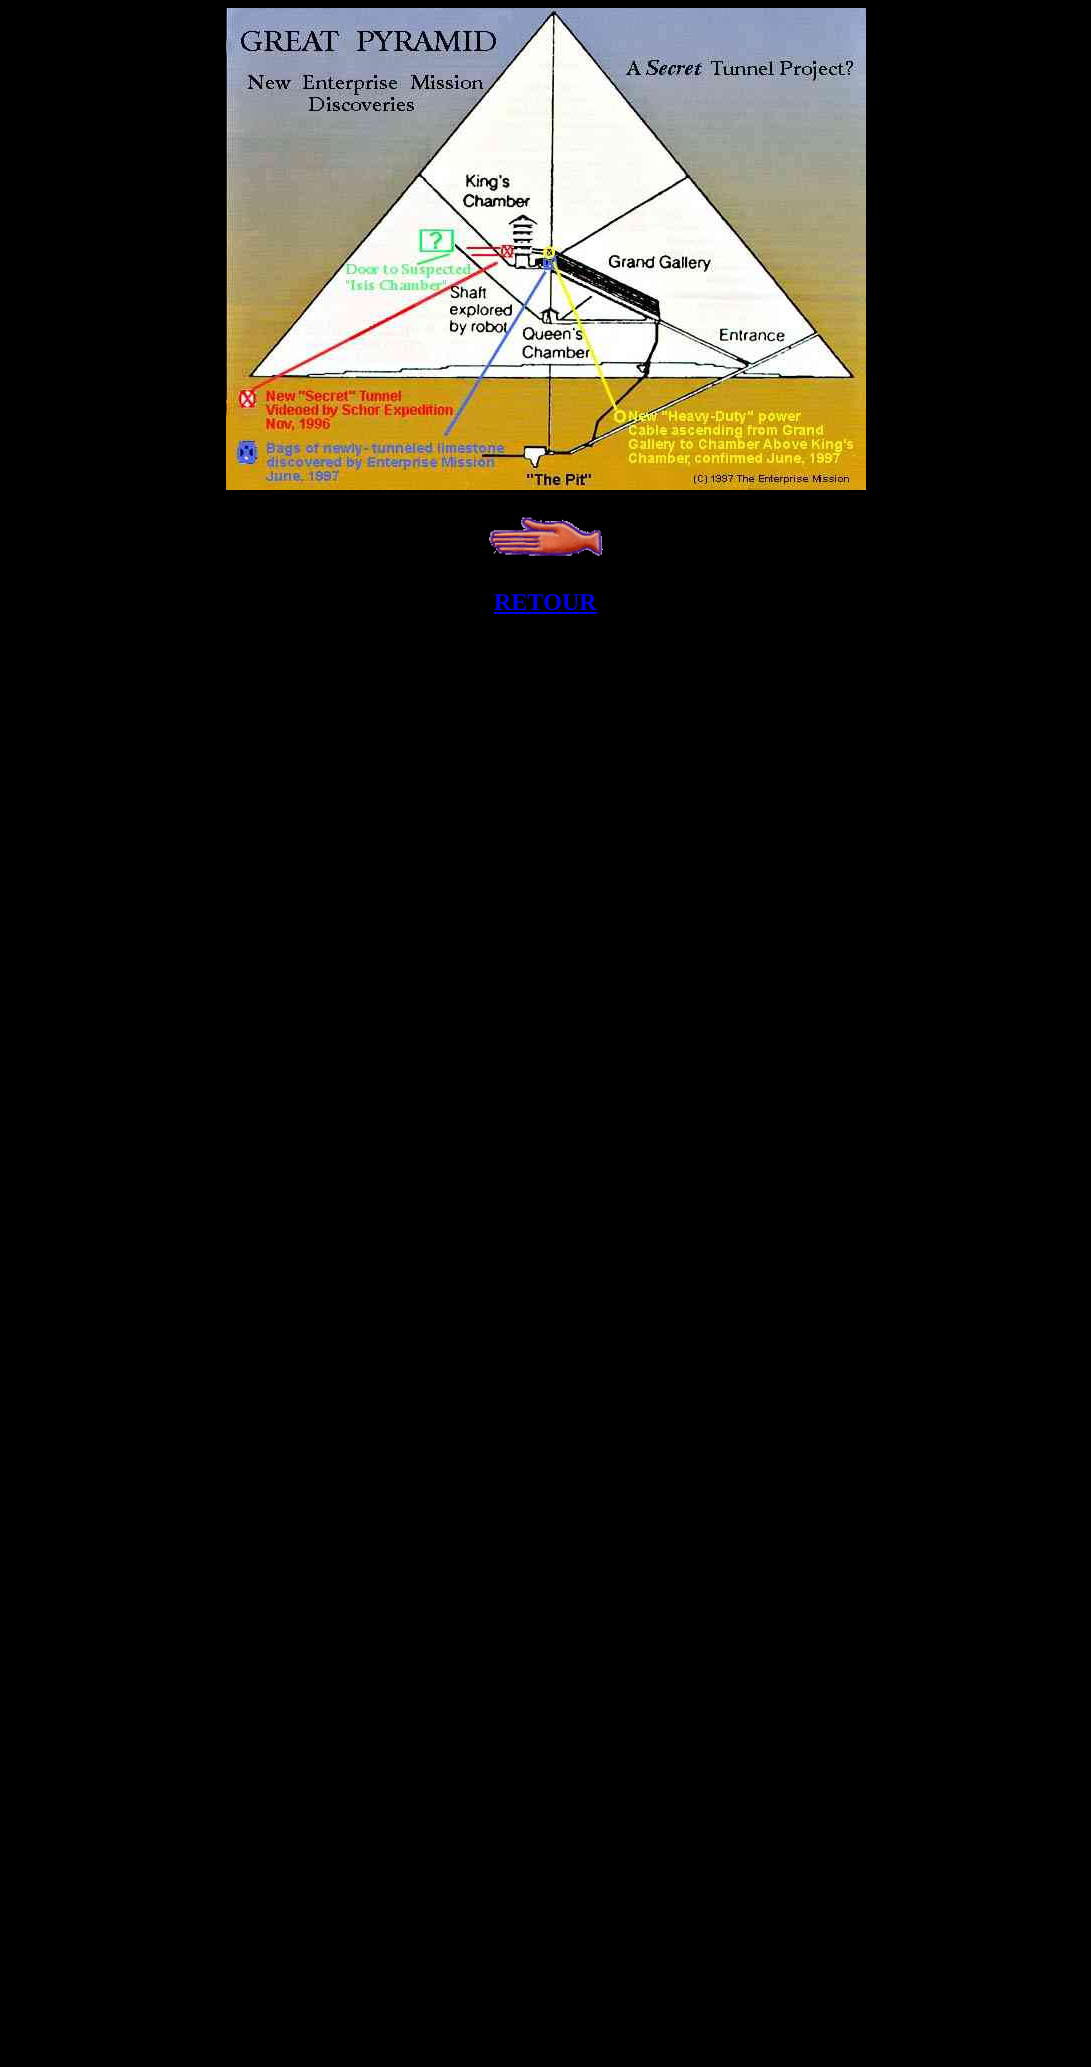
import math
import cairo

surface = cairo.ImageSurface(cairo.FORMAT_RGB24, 1091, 2067)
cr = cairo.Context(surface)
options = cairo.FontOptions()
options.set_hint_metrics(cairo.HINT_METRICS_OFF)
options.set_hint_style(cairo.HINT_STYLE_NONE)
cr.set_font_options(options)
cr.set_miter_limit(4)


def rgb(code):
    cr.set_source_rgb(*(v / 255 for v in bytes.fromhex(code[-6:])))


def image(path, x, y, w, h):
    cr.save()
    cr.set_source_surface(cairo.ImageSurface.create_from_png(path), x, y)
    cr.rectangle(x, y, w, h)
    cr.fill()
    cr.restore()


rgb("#000000")
cr.paint()
image("img/1.png", 226, 8, 640, 482)
image("img/2.png", 489, 517, 114, 39)
rgb("#0000ee")
cr.rectangle(494, 612, 103, 2)
cr.fill()
cr.select_font_face("Liberation Serif", cairo.FONT_SLANT_NORMAL, cairo.FONT_WEIGHT_BOLD)
cr.set_font_size(24)
cr.move_to(494, 610)
cr.show_text("RETOUR")
surface.write_to_png("page.png")
